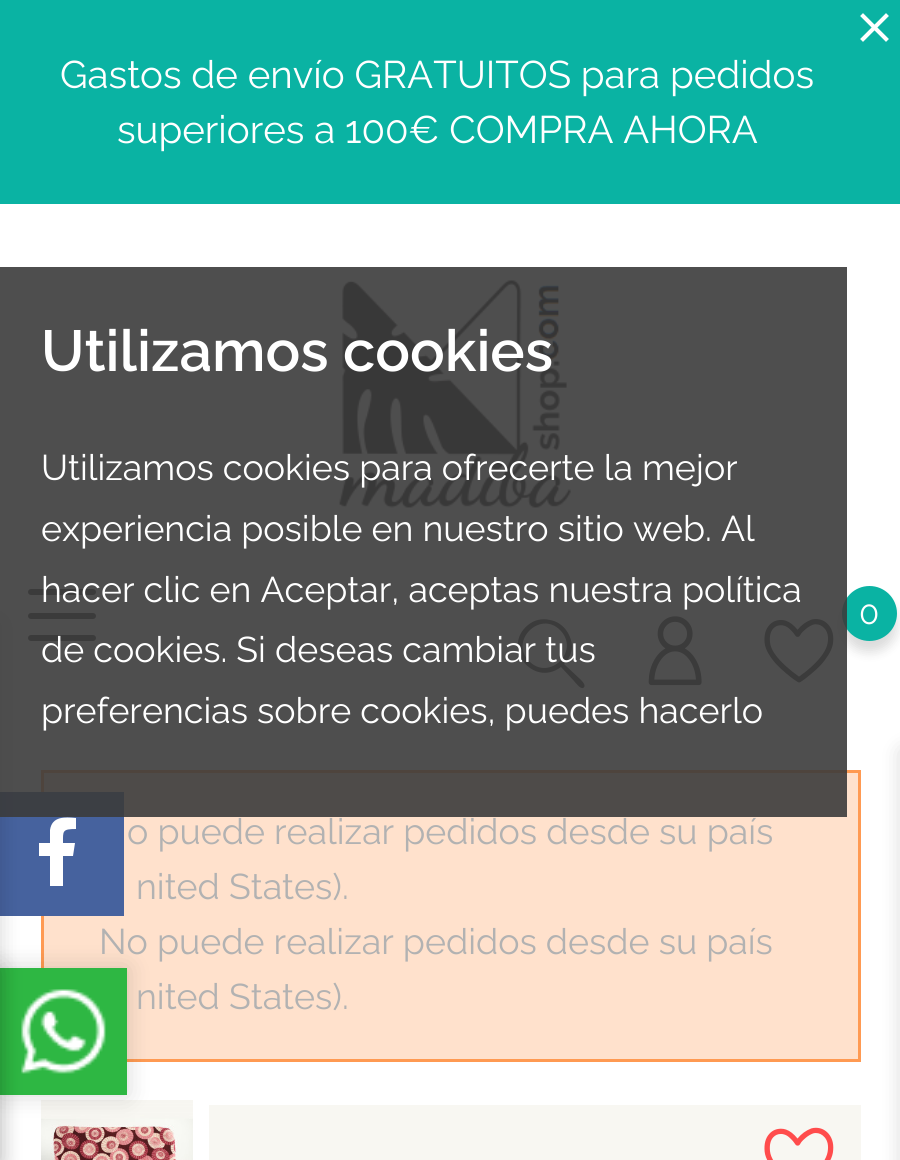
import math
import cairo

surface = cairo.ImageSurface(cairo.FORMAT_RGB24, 900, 1160)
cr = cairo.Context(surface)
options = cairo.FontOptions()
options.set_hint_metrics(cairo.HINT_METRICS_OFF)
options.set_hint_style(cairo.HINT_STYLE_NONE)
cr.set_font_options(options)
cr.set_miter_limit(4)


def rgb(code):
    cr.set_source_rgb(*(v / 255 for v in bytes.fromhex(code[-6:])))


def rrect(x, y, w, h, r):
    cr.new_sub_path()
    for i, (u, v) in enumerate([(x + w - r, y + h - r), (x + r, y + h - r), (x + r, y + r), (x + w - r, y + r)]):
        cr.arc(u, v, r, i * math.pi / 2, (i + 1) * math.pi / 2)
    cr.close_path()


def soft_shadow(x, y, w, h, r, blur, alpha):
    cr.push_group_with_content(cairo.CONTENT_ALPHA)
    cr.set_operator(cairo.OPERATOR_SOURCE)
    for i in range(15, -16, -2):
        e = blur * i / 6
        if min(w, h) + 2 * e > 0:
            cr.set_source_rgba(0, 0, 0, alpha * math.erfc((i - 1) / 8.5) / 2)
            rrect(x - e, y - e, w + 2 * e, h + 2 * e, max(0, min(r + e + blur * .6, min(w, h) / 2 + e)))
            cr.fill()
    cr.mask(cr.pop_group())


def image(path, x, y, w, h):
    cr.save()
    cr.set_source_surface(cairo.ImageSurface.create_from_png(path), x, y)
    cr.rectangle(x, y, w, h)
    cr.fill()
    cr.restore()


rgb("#ffffff")
cr.paint()
rgb("#0ab3a3")
cr.rectangle(0, 0, 900, 204)
cr.fill()
image("img/1.png", 860, 13, 29, 29)
rgb("#ffe1cc")
cr.rectangle(42.5, 771.5, 817, 289)
cr.fill_preserve()
rgb("#ff9a52")
cr.set_line_width(3)
cr.stroke()
rgb("#46629e")
cr.rectangle(0, 792, 124, 124)
cr.fill()
image("img/3.png", 41, 1100, 152, 60)
rgb("#000000")
soft_shadow(0, 968, 127, 127, 0, 12.5, 0.15)
rgb("#2eb743")
cr.rectangle(0, 968, 127, 127)
cr.fill()
image("img/2.png", 21, 989, 85, 85)
rgb("#3a3a3a")
rrect(28, 589, 68, 6, 3)
cr.fill()
rrect(28, 613, 68, 6, 3)
cr.fill()
rrect(28, 635, 68, 6, 3)
cr.fill()
rgb("#000000")
soft_shadow(-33, 622, 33, 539, 0, 11, 0.16)
image("img/5.png", 339, 280, 232, 228)
rgb("#3a3a3a")
cr.new_path()
cr.move_to(564, 664)
cr.curve_to(569, 659, 572, 653, 572, 646)
cr.curve_to(571, 633, 562, 622, 550, 620)
cr.curve_to(542, 618, 534, 620, 528, 625)
cr.curve_to(501, 647, 533, 688, 561, 667)
cr.line_to(574, 681)
cr.curve_to(575, 682, 580, 689, 583, 688)
cr.curve_to(587, 686, 582, 681, 581, 680)
cr.close_path()
cr.move_to(529, 661)
cr.curve_to(509, 641, 540, 610, 560, 630)
cr.curve_to(581, 651, 549, 682, 529, 661)
cr.close_path()
cr.fill()
image("img/6.png", 648, 616, 54, 70)
image("img/7.png", 764, 619, 70, 64)
rgb("#000000")
soft_shadow(842, 597, 55, 55, 27.5, 5.5, 0.14)
rgb("#0ab3a3")
cr.arc(869.5, 613.5, 27.5, 0, 2 * math.pi)
cr.fill()
cr.set_source_rgba(0.231, 0.231, 0.231, 0.9)
cr.rectangle(0, 267, 847, 550)
cr.fill()
rgb("#000000")
soft_shadow(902, 751, 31, 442, 0, 11, 0.16)
rgb("#ffffff")
cr.new_path()
cr.move_to(73, 856)
cr.line_to(63, 856)
cr.line_to(63, 886)
cr.line_to(50, 886)
cr.line_to(50, 856)
cr.line_to(39, 856)
cr.line_to(39, 843)
cr.line_to(50, 843)
cr.line_to(50, 830)
cr.curve_to(52, 816, 65, 817, 76, 818)
cr.line_to(76, 829)
cr.curve_to(62, 829, 63, 831, 63, 843)
cr.line_to(75, 843)
cr.close_path()
cr.fill()
rgb("#000000")
soft_shadow(-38, 968, 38, 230, 0, 12.5, 0.15)
rgb("#f8f7f2")
cr.rectangle(209, 1105, 652, 55)
cr.fill()
image("img/4.png", 764, 1127, 70, 33)
cr.select_font_face("Raleway")
cr.set_font_size(38.5)
rgb("#ffffff")
cr.move_to(60, 88)
cr.show_text("Gastos de envío GRATUITOS para pedidos")
cr.move_to(117, 143)
cr.show_text("superiores a 100€ COMPRA AHORA")
cr.select_font_face("Raleway SemiBold")
cr.set_font_size(57.75)
cr.move_to(41, 371)
cr.show_text("Utilizamos cookies")
cr.select_font_face("Raleway")
cr.set_font_size(35.75)
for x, y, s in [
    (41, 480, "Utilizamos cookies para ofrecerte la mejor"),
    (41, 541, "experiencia posible en nuestro sitio web. Al"),
    (41, 602, "hacer clic en Aceptar, aceptas nuestra política"),
    (41, 662, "de cookies. Si deseas cambiar tus"),
    (41, 723, "preferencias sobre cookies, puedes hacerlo"),
]:
    cr.move_to(x, y)
    cr.show_text(s)
cr.set_font_size(33)
cr.move_to(859, 624)
cr.show_text("0")
cr.set_font_size(35.75)
rgb("#b2b2b2")
for x, y, s in [
    (127, 844, "o puede realizar pedidos desde su país"),
    (136, 899, "nited States)."),
    (99, 954, "No puede realizar pedidos desde su país"),
    (136, 1009, "nited States)."),
]:
    cr.move_to(x, y)
    cr.show_text(s)
surface.write_to_png("page.png")
